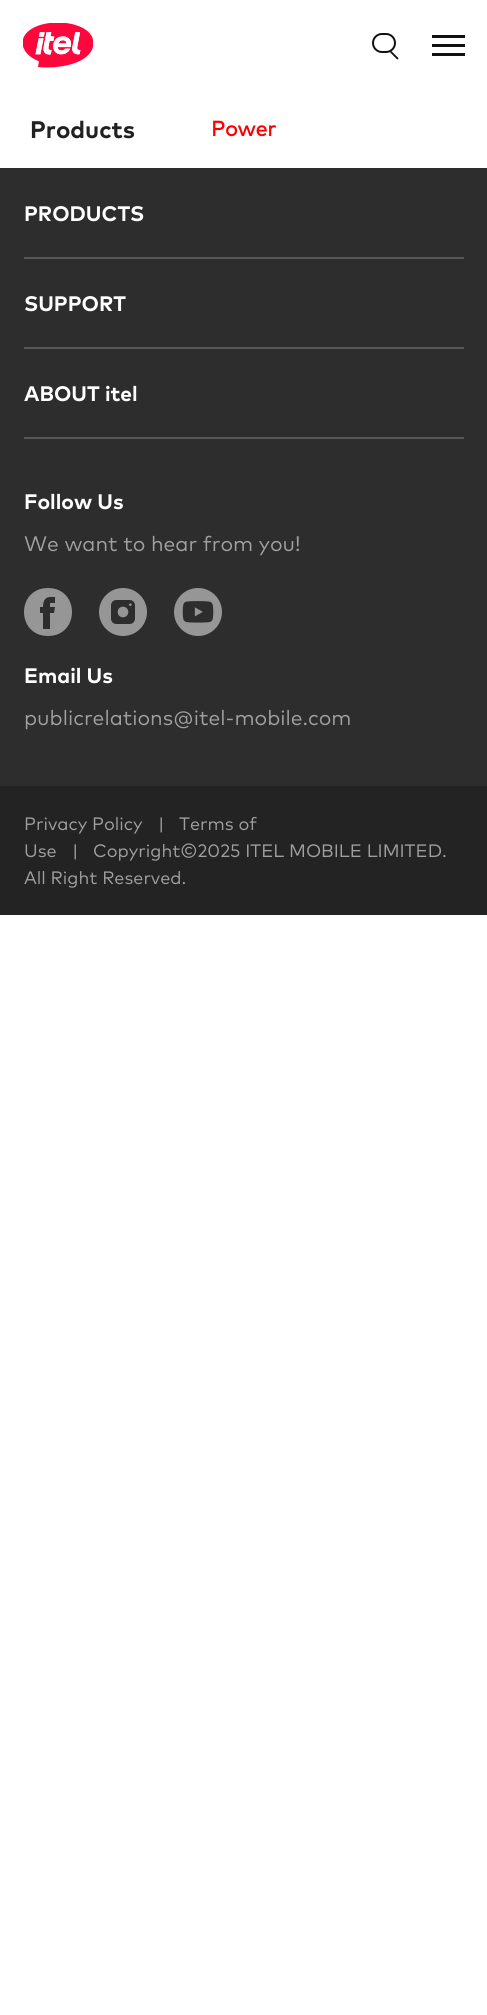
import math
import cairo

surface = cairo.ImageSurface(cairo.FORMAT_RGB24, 487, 2015)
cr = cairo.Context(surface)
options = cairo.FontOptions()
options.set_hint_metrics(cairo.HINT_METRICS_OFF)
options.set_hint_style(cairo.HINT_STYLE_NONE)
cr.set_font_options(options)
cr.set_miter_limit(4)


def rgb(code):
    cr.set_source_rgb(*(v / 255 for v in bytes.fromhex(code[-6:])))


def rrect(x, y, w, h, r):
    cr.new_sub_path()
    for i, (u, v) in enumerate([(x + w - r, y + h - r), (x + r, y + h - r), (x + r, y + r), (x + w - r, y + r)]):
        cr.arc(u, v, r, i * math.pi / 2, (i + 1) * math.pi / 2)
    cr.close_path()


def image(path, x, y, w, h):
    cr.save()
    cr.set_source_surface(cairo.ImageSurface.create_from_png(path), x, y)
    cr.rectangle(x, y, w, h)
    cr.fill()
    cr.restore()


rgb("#ffffff")
cr.paint()
image("img/1.png", 23, 23, 70, 45)
rrect(373, 34, 22, 18, 9)
rgb("#111111")
cr.stroke()
cr.new_path()
cr.move_to(391, 52)
cr.line_to(397.5, 58.5)
cr.set_line_width(1.8)
cr.set_line_cap(cairo.LINE_CAP_ROUND)
cr.set_line_join(cairo.LINE_JOIN_ROUND)
cr.stroke()
for x, y, w, h, color in [
    (432, 44, 33, 3, "#111111"),
    (432, 35, 33, 3, "#111111"),
    (432, 53, 33, 3, "#111111"),
    (0, 168, 487, 618, "#2d2d2d"),
    (24, 257, 440, 2, "#575757"),
    (24, 347, 440, 2, "#575757"),
    (24, 437, 440, 2, "#575757"),
]:
    rgb(color)
    cr.rectangle(x, y, w, h)
    cr.fill()
rgb("#969696")
cr.new_path()
cr.move_to(48, 588)
cr.curve_to(80, 588, 80, 636, 48, 636)
cr.curve_to(16, 636, 16, 588, 48, 588)
cr.close_path()
cr.move_to(50, 597)
cr.curve_to(44, 597, 43, 603, 43, 607)
cr.line_to(40, 607)
cr.line_to(40, 613)
cr.line_to(43, 613)
cr.line_to(43, 629)
cr.line_to(50, 629)
cr.line_to(50, 613)
cr.line_to(54, 613)
cr.line_to(55, 607)
cr.line_to(50, 607)
cr.curve_to(50, 602, 49, 603, 55, 603)
cr.line_to(55, 597)
cr.close_path()
cr.fill()
image("img/2.png", 99, 588, 48, 48)
image("img/3.png", 174, 588, 48, 48)
rgb("#232323")
cr.rectangle(0, 786, 487, 129)
cr.fill()
cr.select_font_face("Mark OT", cairo.FONT_SLANT_NORMAL, cairo.FONT_WEIGHT_BOLD)
cr.set_font_size(24)
rgb("#212121")
cr.move_to(30, 138)
cr.show_text("Products")
cr.select_font_face("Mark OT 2", cairo.FONT_SLANT_NORMAL, cairo.FONT_WEIGHT_BOLD)
cr.set_font_size(21)
rgb("#ff0000")
cr.move_to(211, 136)
cr.show_text("Power")
cr.select_font_face("Mark OT", cairo.FONT_SLANT_NORMAL, cairo.FONT_WEIGHT_BOLD)
rgb("#ffffff")
for x, y, s in [
    (24, 221, "PRODUCTS"),
    (24, 311, "SUPPORT"),
    (24, 401, "ABOUT itel"),
    (24, 509, "Follow Us"),
]:
    cr.move_to(x, y)
    cr.show_text(s)
cr.select_font_face("Mark OT")
rgb("#a0a0a0")
cr.move_to(24, 551)
cr.show_text("We want to hear from you!")
cr.select_font_face("Mark OT", cairo.FONT_SLANT_NORMAL, cairo.FONT_WEIGHT_BOLD)
rgb("#ffffff")
cr.move_to(24, 683)
cr.show_text("Email Us")
cr.select_font_face("Mark OT")
rgb("#a0a0a0")
cr.move_to(24, 725)
cr.show_text("publicrelations@itel-mobile.com")
cr.set_font_size(18)
for x, y, s in [
    (24, 830, "Privacy Policy"),
    (158, 830, "|"),
    (179, 830, "Terms of"),
    (24, 857, "Use"),
    (72, 857, "|"),
    (93, 857, "Copyright©2025 ITEL MOBILE LIMITED."),
    (24, 884, "All Right Reserved."),
]:
    cr.move_to(x, y)
    cr.show_text(s)
surface.write_to_png("page.png")
